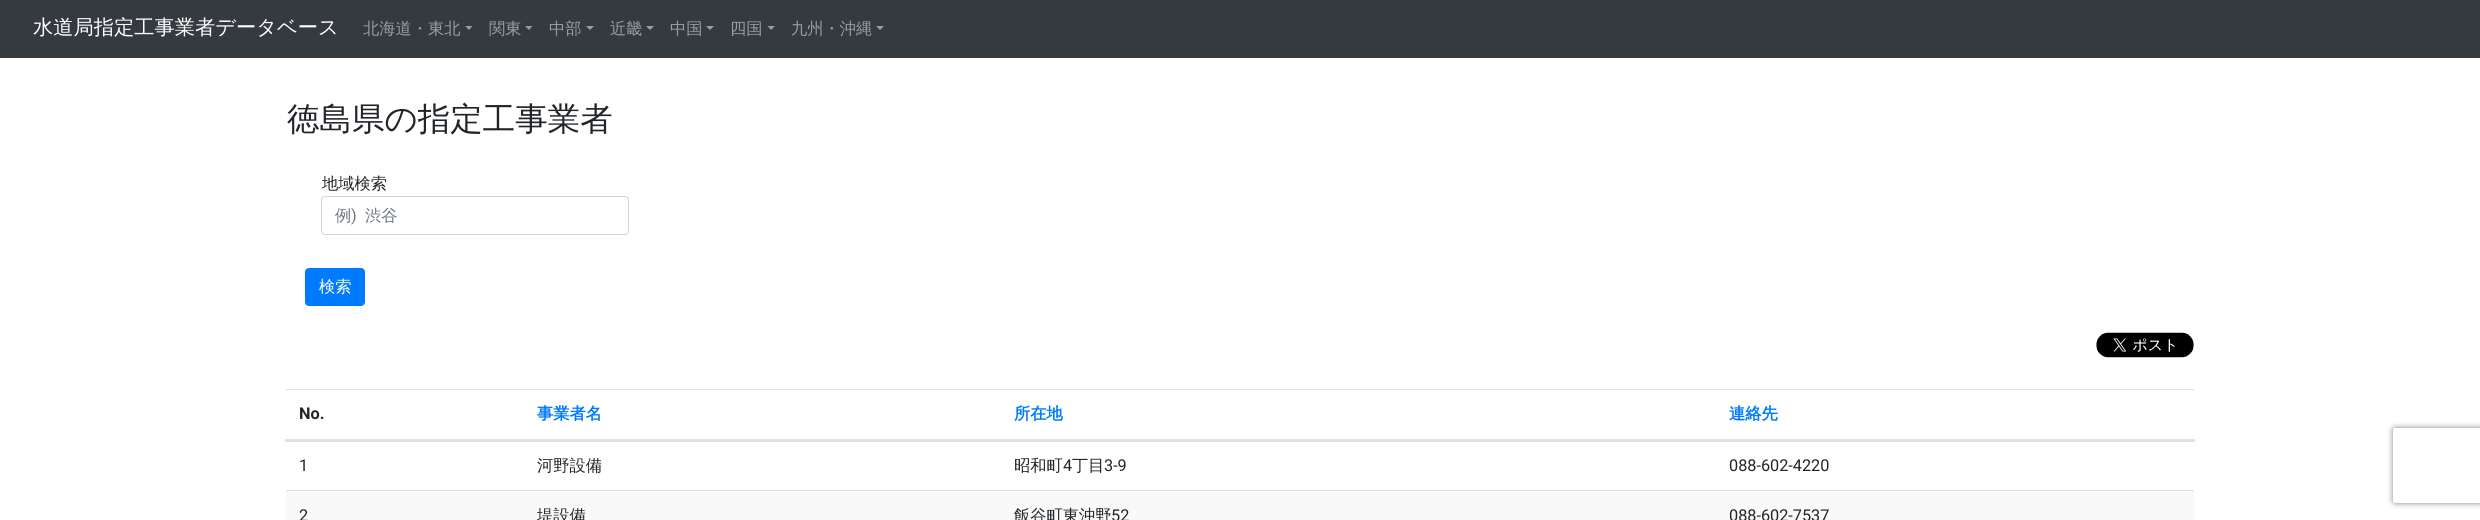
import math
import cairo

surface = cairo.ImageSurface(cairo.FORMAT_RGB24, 2480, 520)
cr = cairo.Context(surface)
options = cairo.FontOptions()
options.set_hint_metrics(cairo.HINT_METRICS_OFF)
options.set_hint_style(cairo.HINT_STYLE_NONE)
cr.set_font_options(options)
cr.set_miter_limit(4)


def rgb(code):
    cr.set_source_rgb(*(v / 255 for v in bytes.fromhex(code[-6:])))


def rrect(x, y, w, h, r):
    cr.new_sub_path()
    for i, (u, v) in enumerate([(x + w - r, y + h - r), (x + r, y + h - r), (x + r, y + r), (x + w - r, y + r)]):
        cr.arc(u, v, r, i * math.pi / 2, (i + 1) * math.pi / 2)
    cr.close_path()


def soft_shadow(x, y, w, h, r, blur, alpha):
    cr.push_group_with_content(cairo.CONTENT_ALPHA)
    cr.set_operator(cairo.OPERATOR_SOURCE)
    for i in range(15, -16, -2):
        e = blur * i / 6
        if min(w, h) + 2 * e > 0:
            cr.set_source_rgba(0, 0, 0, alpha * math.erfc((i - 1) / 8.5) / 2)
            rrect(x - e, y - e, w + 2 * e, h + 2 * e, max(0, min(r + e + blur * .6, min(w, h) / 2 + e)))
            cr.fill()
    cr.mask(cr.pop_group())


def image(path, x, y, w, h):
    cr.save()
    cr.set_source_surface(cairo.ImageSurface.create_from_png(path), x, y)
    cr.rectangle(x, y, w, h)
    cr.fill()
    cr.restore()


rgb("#ffffff")
cr.paint()
rgb("#343a40")
cr.rectangle(0, 0, 2480, 58)
cr.fill()
rgb("#9a9da0")
cr.new_path()
cr.move_to(465, 26)
cr.line_to(472.5, 26)
cr.line_to(469, 30)
cr.close_path()
cr.fill()
cr.new_path()
cr.move_to(525, 26)
cr.line_to(532.5, 26)
cr.line_to(529, 30)
cr.close_path()
cr.fill()
cr.new_path()
cr.move_to(586, 26)
cr.line_to(594, 26)
cr.line_to(590, 30)
cr.close_path()
cr.fill()
cr.new_path()
cr.move_to(646, 26)
cr.line_to(654, 26)
cr.line_to(650, 30)
cr.close_path()
cr.fill()
cr.new_path()
cr.move_to(706, 26)
cr.line_to(714, 26)
cr.line_to(710, 30)
cr.close_path()
cr.fill()
cr.new_path()
cr.move_to(767.5, 26)
cr.line_to(775, 26)
cr.line_to(771, 30)
cr.close_path()
cr.fill()
cr.new_path()
cr.move_to(876, 26)
cr.line_to(884, 26)
cr.line_to(880, 30)
cr.close_path()
cr.fill()
rrect(321.5, 196.5, 307, 38, 3.5)
rgb("#ced4da")
cr.set_line_width(1)
cr.stroke()
rgb("#007bff")
rrect(305.5, 268.5, 59, 37, 3.5)
cr.fill_preserve()
cr.stroke()
image("img/1.png", 2096, 332, 98, 26)
for x, y, w, h, color in [
    (286, 389, 1908, 1, "#dee2e6"),
    (285, 439, 1910, 3, "#dee2e6"),
    (286, 491, 1908, 29, "#f9f9f9"),
    (286, 490, 1908, 1, "#dee2e6"),
]:
    rgb(color)
    cr.rectangle(x, y, w, h)
    cr.fill()
cr.save()
cr.set_fill_rule(cairo.FILL_RULE_EVEN_ODD)
cr.new_path()
cr.move_to(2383, 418)
cr.line_to(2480, 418)
cr.line_to(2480, 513)
cr.line_to(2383, 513)
cr.close_path()
cr.move_to(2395.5, 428)
cr.line_to(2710.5, 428)
cr.curve_to(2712, 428, 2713, 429, 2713, 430.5)
cr.line_to(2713, 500.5)
cr.curve_to(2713, 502, 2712, 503, 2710.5, 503)
cr.line_to(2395.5, 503)
cr.curve_to(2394, 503, 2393, 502, 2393, 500.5)
cr.line_to(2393, 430.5)
cr.curve_to(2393, 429, 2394, 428, 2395.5, 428)
cr.close_path()
cr.clip()
rgb("#808080")
soft_shadow(2393, 428, 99, 75, 2.5, 3, 1)
cr.restore()
cr.select_font_face("WenQuanYi Zen Hei Medium")
cr.set_font_size(20.25)
rgb("#ffffff")
cr.move_to(33, 34)
cr.show_text("水道局指定工事業者データベース")
cr.set_font_size(16.25)
rgb("#9a9da0")
for x, y, s in [
    (363, 34, "北海道・東北"),
    (489, 34, "関東"),
    (549, 34, "中部"),
    (610, 34, "近畿"),
    (670, 34, "中国"),
    (730, 34, "四国"),
    (791, 34, "九州・沖縄"),
]:
    cr.move_to(x, y)
    cr.show_text(s)
cr.set_font_size(32.5)
rgb("#212529")
cr.move_to(287, 130)
cr.show_text("徳島県の指定工事業者")
cr.set_font_size(16.25)
cr.move_to(322, 189)
cr.show_text("地域検索")
rgb("#6c757d")
cr.move_to(335, 221)
cr.show_text("例")
cr.select_font_face("Roboto")
cr.move_to(351, 221)
cr.show_text(")")
cr.select_font_face("WenQuanYi Zen Hei Medium")
cr.move_to(365, 221)
cr.show_text("渋谷")
rgb("#ffffff")
cr.move_to(319, 292)
cr.show_text("検索")
cr.select_font_face("Roboto", cairo.FONT_SLANT_NORMAL, cairo.FONT_WEIGHT_BOLD)
rgb("#212529")
cr.move_to(299, 419)
cr.show_text("No.")
cr.select_font_face("WenQuanYi Zen Hei", cairo.FONT_SLANT_NORMAL, cairo.FONT_WEIGHT_BOLD)
rgb("#007bff")
for x, y, s in [
    (537, 419, "事業者名"),
    (1014, 419, "所在地"),
    (1729, 419, "連絡先"),
]:
    cr.move_to(x, y)
    cr.show_text(s)
cr.select_font_face("Roboto")
rgb("#212529")
cr.move_to(299, 471)
cr.show_text("1")
cr.select_font_face("WenQuanYi Zen Hei Medium")
cr.move_to(537, 471)
cr.show_text("河野設備")
cr.move_to(1014, 471)
cr.show_text("昭和町")
cr.select_font_face("Roboto")
cr.move_to(1063, 471)
cr.show_text("4")
cr.select_font_face("WenQuanYi Zen Hei Medium")
cr.move_to(1072, 471)
cr.show_text("丁目")
cr.select_font_face("Roboto")
for x, y, s in [
    (1104, 471, "3-9"),
    (1729, 471, "088-602-4220"),
    (299, 521, "2"),
]:
    cr.move_to(x, y)
    cr.show_text(s)
cr.select_font_face("WenQuanYi Zen Hei Medium")
cr.move_to(537, 521)
cr.show_text("堤設備")
cr.move_to(1014, 521)
cr.show_text("飯谷町東沖野")
cr.select_font_face("Roboto")
cr.move_to(1111, 521)
cr.show_text("52")
cr.move_to(1729, 521)
cr.show_text("088-602-7537")
surface.write_to_png("page.png")
